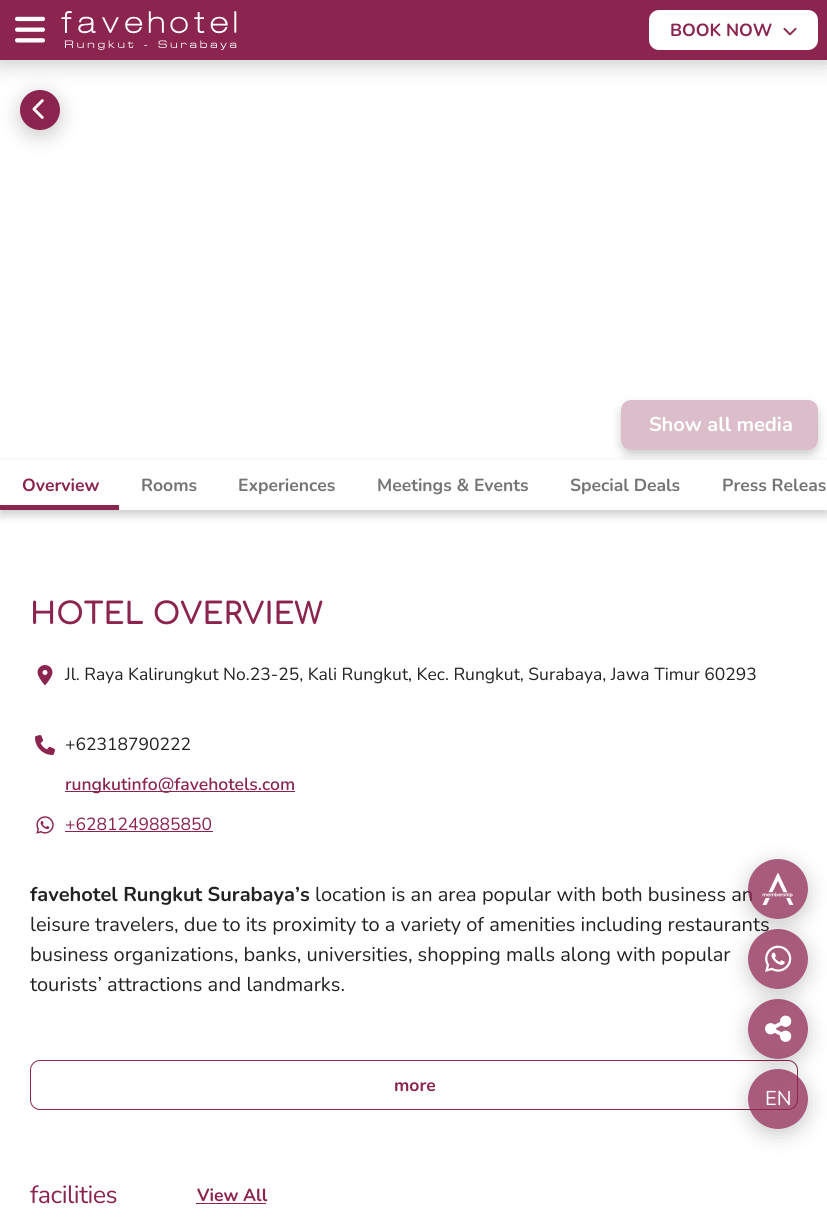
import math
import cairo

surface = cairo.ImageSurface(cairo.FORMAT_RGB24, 827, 1218)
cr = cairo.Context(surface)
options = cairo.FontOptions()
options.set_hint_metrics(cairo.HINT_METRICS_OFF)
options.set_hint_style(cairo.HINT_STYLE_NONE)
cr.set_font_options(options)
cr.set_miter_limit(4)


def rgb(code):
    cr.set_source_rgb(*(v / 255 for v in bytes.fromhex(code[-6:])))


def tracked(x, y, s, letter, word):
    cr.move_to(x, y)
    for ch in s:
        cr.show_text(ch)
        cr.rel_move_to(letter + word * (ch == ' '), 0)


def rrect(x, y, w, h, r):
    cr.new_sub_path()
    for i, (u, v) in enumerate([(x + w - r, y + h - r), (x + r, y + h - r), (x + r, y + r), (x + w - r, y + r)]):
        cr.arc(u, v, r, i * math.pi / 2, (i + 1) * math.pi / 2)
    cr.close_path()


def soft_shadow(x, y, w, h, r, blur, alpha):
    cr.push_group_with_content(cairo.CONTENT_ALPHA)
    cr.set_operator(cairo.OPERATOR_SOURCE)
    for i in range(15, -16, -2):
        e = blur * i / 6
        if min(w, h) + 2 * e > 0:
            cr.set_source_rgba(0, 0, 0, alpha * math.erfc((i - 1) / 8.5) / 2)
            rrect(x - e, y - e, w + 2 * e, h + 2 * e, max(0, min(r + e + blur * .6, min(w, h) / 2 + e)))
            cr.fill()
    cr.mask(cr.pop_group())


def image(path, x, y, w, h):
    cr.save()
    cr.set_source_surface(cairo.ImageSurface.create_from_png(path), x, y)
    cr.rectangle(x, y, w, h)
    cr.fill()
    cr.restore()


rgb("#ffffff")
cr.paint()
rgb("#000000")
soft_shadow(20, 95, 40, 40, 20, 10, 0.2)
rgb("#8b254f")
cr.arc(40, 110, 20, 0, 2 * math.pi)
cr.fill()
rgb("#000000")
soft_shadow(0, 5, 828, 60, 0, 10, 0.2)
rgb("#8b254f")
cr.rectangle(0, 0, 827, 60)
cr.fill()
image("img/1.png", 15, 16, 30, 27)
image("img/2.png", 61, 11, 176, 39)
rgb("#ffffff")
rrect(649, 10, 169, 40, 10)
cr.fill()
image("img/3.png", 783, 27, 14, 9)
image("img/4.png", 32, 99, 12, 20)
cr.save()
cr.set_fill_rule(cairo.FILL_RULE_EVEN_ODD)
cr.new_path()
cr.move_to(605, 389)
cr.line_to(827, 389)
cr.line_to(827, 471)
cr.line_to(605, 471)
cr.close_path()
cr.move_to(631, 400)
cr.line_to(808, 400)
cr.curve_to(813.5, 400, 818, 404.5, 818, 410)
cr.line_to(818, 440)
cr.curve_to(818, 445.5, 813.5, 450, 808, 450)
cr.line_to(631, 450)
cr.curve_to(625.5, 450, 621, 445.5, 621, 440)
cr.line_to(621, 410)
cr.curve_to(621, 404.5, 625.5, 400, 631, 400)
cr.close_path()
cr.clip()
rgb("#000000")
soft_shadow(621, 405, 197, 50, 10, 5, 0.2)
cr.restore()
cr.set_source_rgba(0.545, 0.145, 0.31, 0.3)
rrect(621, 400, 197, 50, 10)
cr.fill()
rgb("#000000")
soft_shadow(0, 465, 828, 50, 0, 5, 0.2)
rgb("#ffffff")
cr.rectangle(0, 460, 827, 50)
cr.fill()
rgb("#8b254f")
cr.rectangle(0, 505, 119, 5)
cr.fill()
image("img/5.png", 37, 665, 16, 20)
image("img/6.png", 35, 735, 20, 20)
cr.rectangle(65, 791, 230, 1)
cr.fill()
image("img/7.png", 36, 816, 18, 18)
cr.rectangle(65, 831, 148, 1)
cr.fill()
rrect(30.5, 1060.5, 767, 49, 9.5)
cr.set_line_width(1)
cr.stroke()
cr.rectangle(196, 1203, 70, 1)
cr.fill()
cr.save()
cr.set_fill_rule(cairo.FILL_RULE_EVEN_ODD)
cr.new_path()
cr.move_to(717, 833)
cr.line_to(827, 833)
cr.line_to(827, 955)
cr.line_to(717, 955)
cr.close_path()
cr.move_to(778, 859)
cr.curve_to(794.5, 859, 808, 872.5, 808, 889)
cr.curve_to(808, 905.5, 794.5, 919, 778, 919)
cr.curve_to(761.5, 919, 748, 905.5, 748, 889)
cr.curve_to(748, 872.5, 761.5, 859, 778, 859)
cr.close_path()
cr.clip()
rgb("#000000")
soft_shadow(748, 864, 60, 60, 30, 10, 0.2)
cr.restore()
cr.select_font_face("Nunito", cairo.FONT_SLANT_NORMAL, cairo.FONT_WEIGHT_BOLD)
cr.set_font_size(17.5)
cr.move_to(670, 36)
cr.show_text("BOOK NOW")
cr.set_font_size(20)
rgb("#ffffff")
cr.move_to(649, 431)
cr.show_text("Show all media")
cr.set_font_size(17.5)
rgb("#8b254f")
cr.move_to(22, 491)
cr.show_text("Overview")
rgb("#757575")
for x, y, s in [
    (141, 491, "Rooms"),
    (238, 491, "Experiences"),
    (377, 491, "Meetings & Events"),
    (570, 491, "Special Deals"),
    (722, 491, "Press Releas"),
]:
    cr.move_to(x, y)
    cr.show_text(s)
cr.select_font_face("Comfortaa", cairo.FONT_SLANT_NORMAL, cairo.FONT_WEIGHT_BOLD)
cr.set_font_size(30)
rgb("#8b254f")
cr.move_to(30, 624)
cr.show_text("HOTEL OVERVIEW")
cr.select_font_face("Nunito")
cr.set_font_size(17.5)
rgb("#222222")
cr.move_to(65, 680)
cr.show_text("Jl. Raya Kalirungkut No.23-25, Kali Rungkut, Kec. Rungkut, Surabaya, Jawa Timur 60293")
cr.move_to(65, 750)
cr.show_text("+62318790222")
cr.select_font_face("Nunito SemiBold")
rgb("#8b254f")
cr.move_to(65, 790)
cr.show_text("rungkutinfo@favehotels.com")
cr.select_font_face("Nunito")
cr.move_to(65, 830)
cr.show_text("+6281249885850")
cr.select_font_face("Nunito", cairo.FONT_SLANT_NORMAL, cairo.FONT_WEIGHT_BOLD)
cr.set_font_size(20)
rgb("#222222")
cr.move_to(30, 901)
cr.show_text("favehotel Rungkut Surabaya’s")
cr.select_font_face("Nunito")
for x, y, s in [
    (315, 901, "location is an area popular with both business an"),
    (30, 931, "leisure travelers, due to its proximity to a variety of amenities including restaurants"),
    (30, 961, "business organizations, banks, universities, shopping malls along with popular"),
    (30, 991, "tourists’ attractions and landmarks."),
]:
    cr.move_to(x, y)
    cr.show_text(s)
cr.select_font_face("Nunito", cairo.FONT_SLANT_NORMAL, cairo.FONT_WEIGHT_BOLD)
cr.set_font_size(17.5)
rgb("#8b254f")
cr.move_to(394, 1091)
cr.show_text("more")
cr.select_font_face("Nunito")
cr.set_font_size(25)
tracked(30, 1203, "facilities", -0.5, 0)
cr.select_font_face("Nunito", cairo.FONT_SLANT_NORMAL, cairo.FONT_WEIGHT_BOLD)
cr.set_font_size(17.5)
cr.move_to(197, 1201)
cr.show_text("View All")
cr.set_source_rgba(0.545, 0.145, 0.31, 0.75)
cr.new_path()
cr.arc(778, 889, 30, 0, 2 * math.pi)
cr.fill()
image("img/8.png", 762, 873, 32, 32)
cr.save()
cr.set_fill_rule(cairo.FILL_RULE_EVEN_ODD)
cr.new_path()
cr.move_to(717, 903)
cr.line_to(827, 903)
cr.line_to(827, 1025)
cr.line_to(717, 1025)
cr.close_path()
cr.move_to(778, 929)
cr.curve_to(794.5, 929, 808, 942.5, 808, 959)
cr.curve_to(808, 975.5, 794.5, 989, 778, 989)
cr.curve_to(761.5, 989, 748, 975.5, 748, 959)
cr.curve_to(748, 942.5, 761.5, 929, 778, 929)
cr.close_path()
cr.clip()
rgb("#000000")
soft_shadow(748, 934, 60, 60, 30, 10, 0.2)
cr.restore()
cr.arc(778, 959, 30, 0, 2 * math.pi)
cr.fill()
image("img/9.png", 765, 945, 27, 27)
cr.save()
cr.set_fill_rule(cairo.FILL_RULE_EVEN_ODD)
cr.new_path()
cr.move_to(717, 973)
cr.line_to(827, 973)
cr.line_to(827, 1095)
cr.line_to(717, 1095)
cr.close_path()
cr.move_to(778, 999)
cr.curve_to(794.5, 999, 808, 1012.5, 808, 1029)
cr.curve_to(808, 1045.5, 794.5, 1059, 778, 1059)
cr.curve_to(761.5, 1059, 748, 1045.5, 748, 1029)
cr.curve_to(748, 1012.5, 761.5, 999, 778, 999)
cr.close_path()
cr.clip()
rgb("#000000")
soft_shadow(748, 1004, 60, 60, 30, 10, 0.2)
cr.restore()
cr.arc(778, 1029, 30, 0, 2 * math.pi)
cr.fill()
image("img/10.png", 765, 1015, 27, 27)
cr.save()
cr.set_fill_rule(cairo.FILL_RULE_EVEN_ODD)
cr.new_path()
cr.move_to(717, 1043)
cr.line_to(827, 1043)
cr.line_to(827, 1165)
cr.line_to(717, 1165)
cr.close_path()
cr.move_to(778, 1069)
cr.curve_to(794.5, 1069, 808, 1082.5, 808, 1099)
cr.curve_to(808, 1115.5, 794.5, 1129, 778, 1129)
cr.curve_to(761.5, 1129, 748, 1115.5, 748, 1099)
cr.curve_to(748, 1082.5, 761.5, 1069, 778, 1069)
cr.close_path()
cr.clip()
rgb("#000000")
soft_shadow(748, 1074, 60, 60, 30, 10, 0.2)
cr.restore()
cr.arc(778, 1099, 30, 0, 2 * math.pi)
cr.fill()
cr.select_font_face("Nunito")
cr.set_font_size(20)
rgb("#ffffff")
cr.move_to(765, 1105)
cr.show_text("EN")
surface.write_to_png("page.png")
